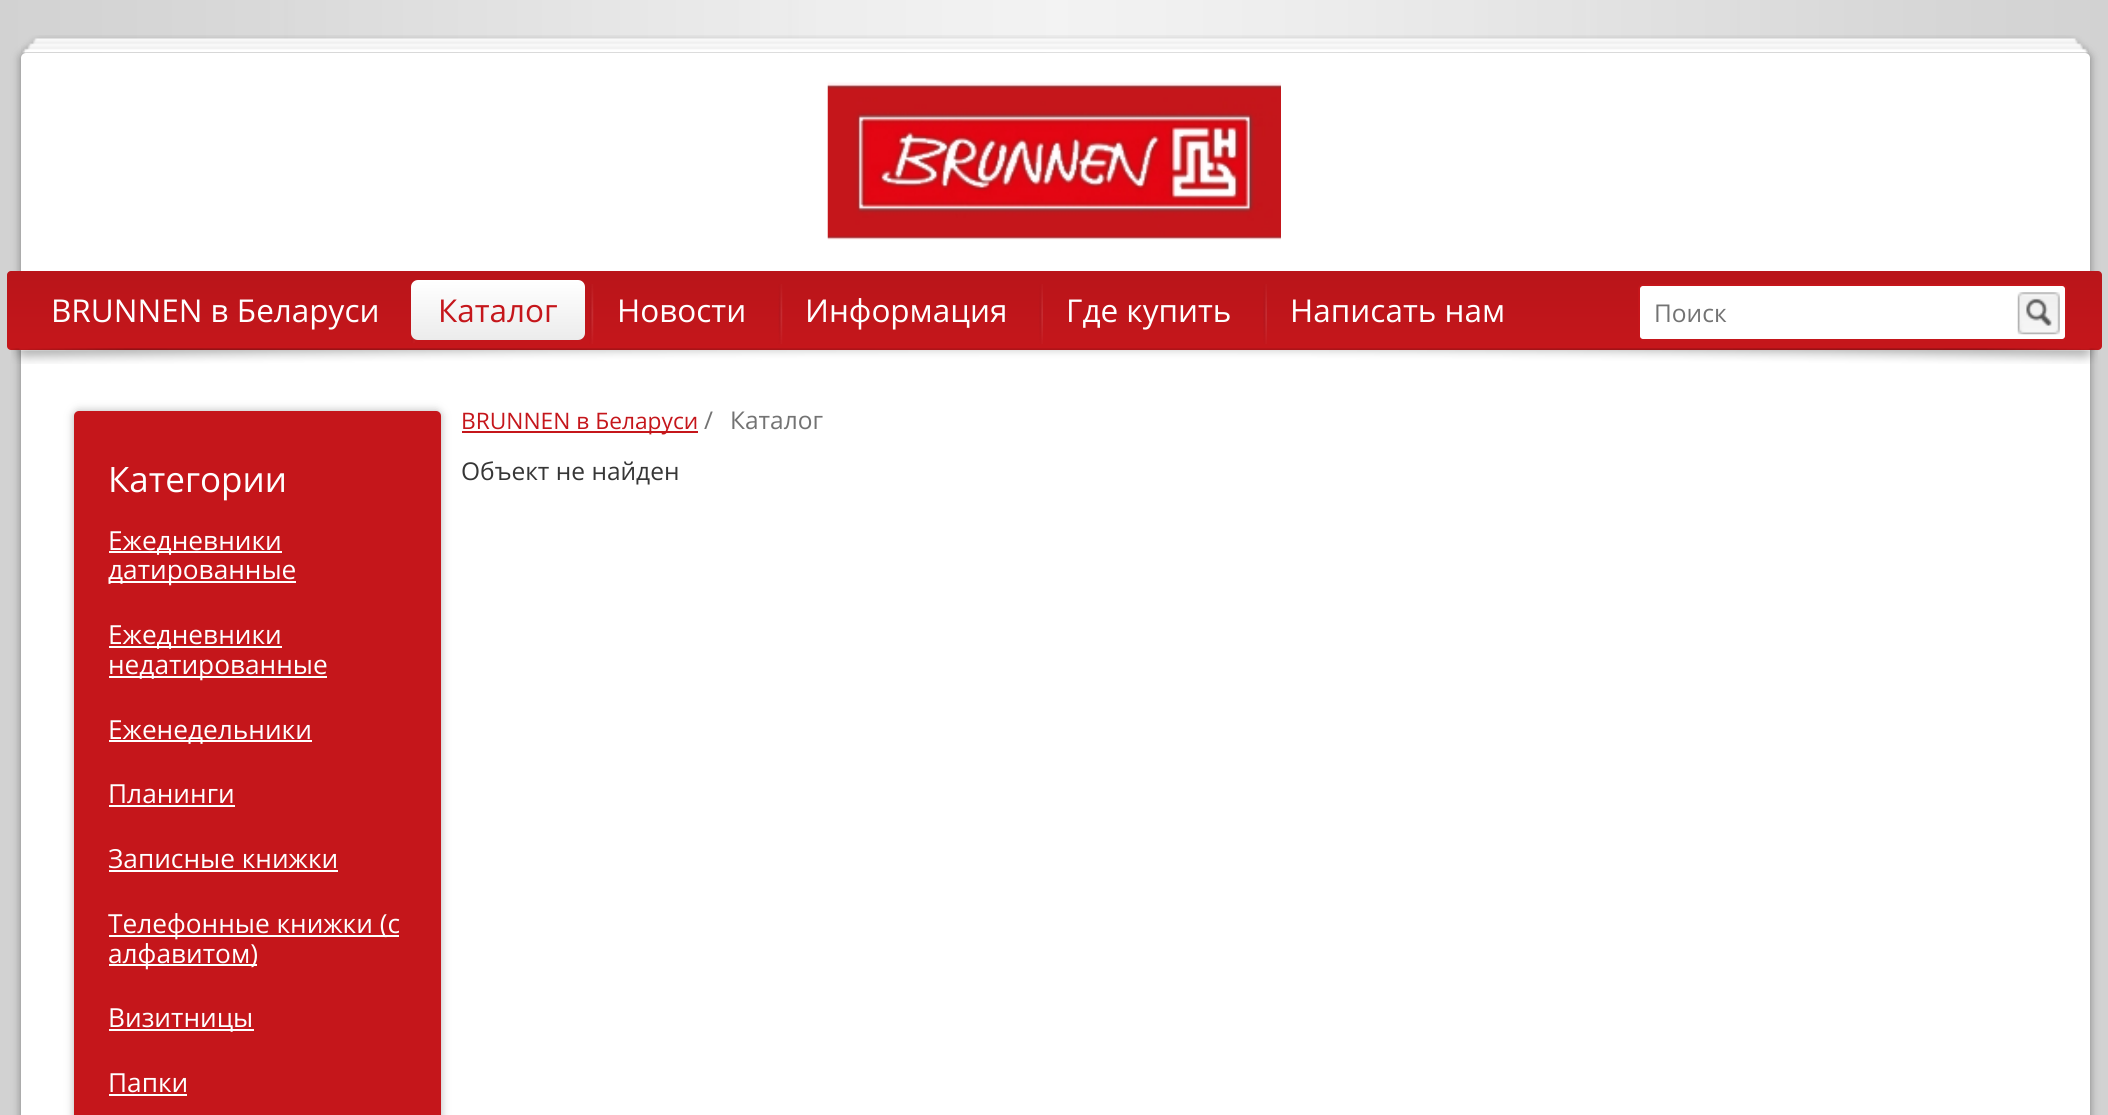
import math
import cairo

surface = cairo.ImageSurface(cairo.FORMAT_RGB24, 2108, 1115)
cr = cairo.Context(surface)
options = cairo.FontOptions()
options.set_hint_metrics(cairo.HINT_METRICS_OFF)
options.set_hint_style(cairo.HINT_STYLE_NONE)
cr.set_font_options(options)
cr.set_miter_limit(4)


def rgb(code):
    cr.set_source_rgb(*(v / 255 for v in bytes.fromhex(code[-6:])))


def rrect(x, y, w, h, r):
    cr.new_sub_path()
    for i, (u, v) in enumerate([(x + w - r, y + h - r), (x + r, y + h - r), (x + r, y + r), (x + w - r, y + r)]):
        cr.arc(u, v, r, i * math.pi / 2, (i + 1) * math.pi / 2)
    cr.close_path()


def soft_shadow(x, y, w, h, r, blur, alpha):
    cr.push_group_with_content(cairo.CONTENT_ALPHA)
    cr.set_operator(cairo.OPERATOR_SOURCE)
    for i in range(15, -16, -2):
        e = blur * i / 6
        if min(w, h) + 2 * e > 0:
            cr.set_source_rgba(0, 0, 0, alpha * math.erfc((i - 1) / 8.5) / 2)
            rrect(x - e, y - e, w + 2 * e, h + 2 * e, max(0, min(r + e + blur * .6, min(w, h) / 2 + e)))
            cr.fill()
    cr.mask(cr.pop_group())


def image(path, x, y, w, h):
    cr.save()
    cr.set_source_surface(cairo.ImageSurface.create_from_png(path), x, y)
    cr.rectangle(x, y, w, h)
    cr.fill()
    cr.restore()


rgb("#ffffff")
cr.paint()
image("img/1.png", 0, 0, 2108, 1115)
rgb("#808080")
soft_shadow(21, 53, 2069, 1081, 5, 4.5, 1)
rgb("#ffffff")
rrect(21, 53, 2069, 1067, 5)
cr.fill()
image("img/2.png", 21, 35, 2068, 18)
image("img/3.png", 827, 82, 454, 158)
gradient = cairo.LinearGradient(1054, 271, 1054, 350)
gradient.add_color_stop_rgba(0, 0.725, 0.082, 0.102, 1)
gradient.add_color_stop_rgba(1, 0.773, 0.086, 0.106, 1)
cr.set_source(gradient)
rrect(7, 271, 2095, 79, 4)
cr.fill()
image("img/7.png", 411, 333, 4, 10)
gradient = cairo.LinearGradient(498, 280, 498, 340)
gradient.add_color_stop_rgba(0, 1, 1, 1, 1)
gradient.add_color_stop_rgba(1, 0.925, 0.925, 0.925, 1)
cr.set_source(gradient)
rrect(411, 280, 174, 60, 7)
cr.fill()
image("img/4.png", 589, 284, 5, 60)
image("img/5.png", 778, 284, 5, 60)
image("img/6.png", 1039, 284, 4, 60)
image("img/6.png", 1263, 284, 4, 60)
rgb("#ffffff")
rrect(1639, 285, 427, 55, 4)
cr.fill_preserve()
rgb("#c5161b")
cr.stroke()
image("img/8.png", 2017, 292, 43, 43)
image("img/9.png", 11, 348, 2087, 16)
cr.rectangle(462, 431, 236, 2)
cr.fill()
rgb("#b9b9b9")
soft_shadow(74, 411, 367, 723, 5, 4.5, 1)
rgb("#c5161b")
rrect(74, 411, 367, 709, 5)
cr.fill()
for x, y, w, h, color in [
    (109, 551, 173, 2, "#ffffff"),
    (109, 581, 187, 2, "#ffffff"),
    (109, 646, 173, 2, "#ffffff"),
    (109, 676, 218, 2, "#ffffff"),
    (109, 740, 203, 2, "#ffffff"),
    (109, 805, 126, 2, "#ffffff"),
    (109, 870, 229, 2, "#ffffff"),
    (109, 935, 290, 2, "#ffffff"),
    (109, 964, 148, 2, "#ffffff"),
    (109, 1029, 145, 2, "#ffffff"),
    (109, 1094, 78, 2, "#ffffff"),
]:
    rgb(color)
    cr.rectangle(x, y, w, h)
    cr.fill()
cr.select_font_face("Open Sans")
cr.set_font_size(31.5)
cr.move_to(51, 322)
cr.show_text("BRUNNEN в Беларуси")
rgb("#c5161b")
cr.move_to(438, 322)
cr.show_text("Каталог")
rgb("#ffffff")
for x, y, s in [
    (617, 322, "Новости"),
    (805, 322, "Информация"),
    (1066, 322, "Где купить"),
    (1290, 322, "Написать нам"),
]:
    cr.move_to(x, y)
    cr.show_text(s)
cr.set_font_size(24.5)
rgb("#737373")
cr.move_to(1654, 322)
cr.show_text("Поиск")
cr.set_font_size(22.75)
rgb("#c5161b")
cr.move_to(461, 429)
cr.show_text("BRUNNEN в Беларуси")
cr.set_font_size(24.5)
rgb("#737373")
cr.move_to(704, 429)
cr.show_text("/")
cr.move_to(730, 429)
cr.show_text("Каталог")
rgb("#363636")
cr.move_to(461, 480)
cr.show_text("Объект не найден")
cr.set_font_size(35)
rgb("#ffffff")
cr.move_to(108, 492)
cr.show_text("Категории")
cr.set_font_size(26.25)
for x, y, s in [
    (108, 550, "Ежедневники"),
    (108, 579, "датированные"),
    (108, 644, "Ежедневники"),
    (108, 674, "недатированные"),
    (108, 739, "Еженедельники"),
    (108, 803, "Планинги"),
    (108, 868, "Записные книжки"),
    (108, 933, "Телефонные книжки (с"),
    (108, 963, "алфавитом)"),
    (108, 1027, "Визитницы"),
    (108, 1092, "Папки"),
]:
    cr.move_to(x, y)
    cr.show_text(s)
surface.write_to_png("page.png")
